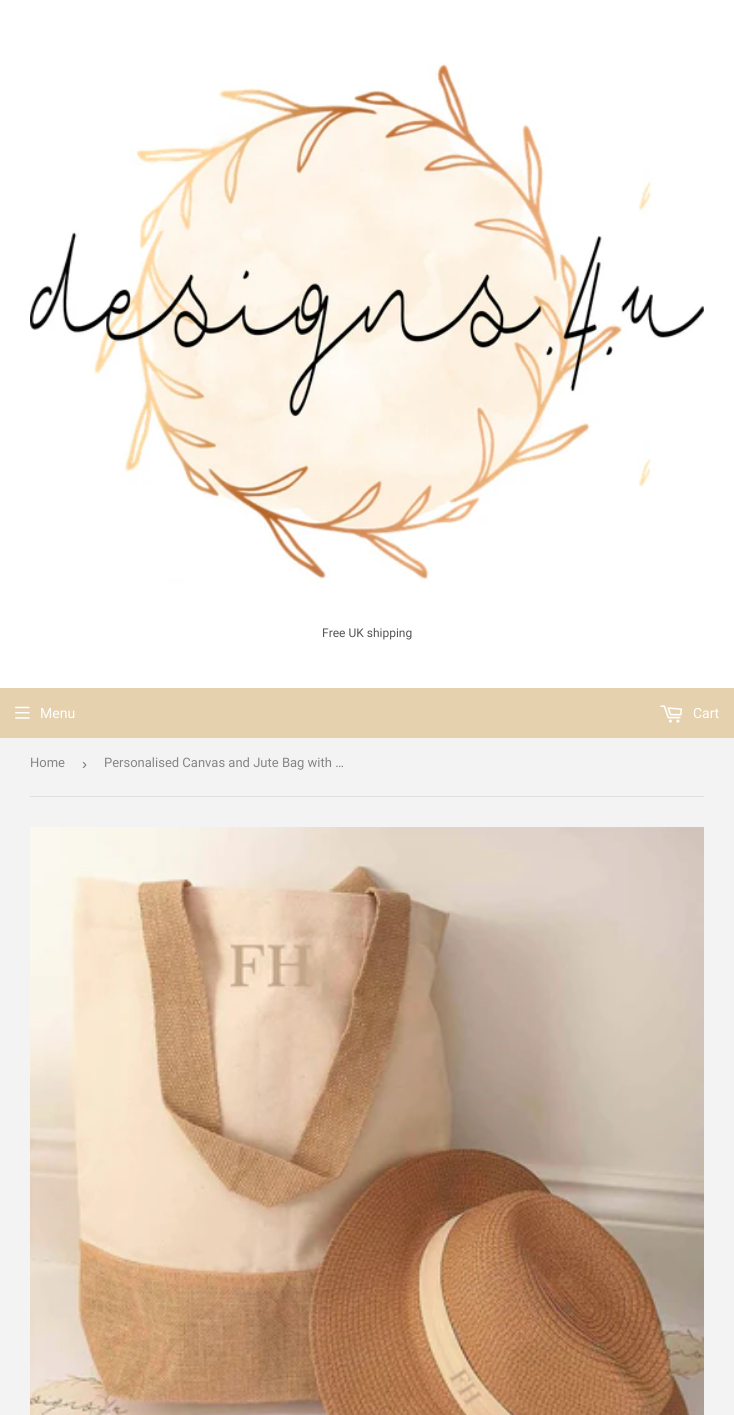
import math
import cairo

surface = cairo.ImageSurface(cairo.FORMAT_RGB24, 734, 1415)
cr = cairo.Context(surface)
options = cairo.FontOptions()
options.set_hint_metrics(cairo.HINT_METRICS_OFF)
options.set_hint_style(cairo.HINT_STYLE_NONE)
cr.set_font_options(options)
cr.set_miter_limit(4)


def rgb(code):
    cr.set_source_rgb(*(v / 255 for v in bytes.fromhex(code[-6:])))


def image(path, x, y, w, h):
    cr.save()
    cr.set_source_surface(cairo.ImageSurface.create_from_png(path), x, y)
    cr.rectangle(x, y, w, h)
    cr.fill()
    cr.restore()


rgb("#f3f3f3")
cr.paint()
rgb("#ffffff")
cr.rectangle(0, 0, 734, 688)
cr.fill()
image("img/1.png", 30, 63, 674, 520)
rgb("#e6d1af")
cr.rectangle(0, 688, 734, 50)
cr.fill()
image("img/2.png", 15, 706, 15, 13)
image("img/3.png", 660, 705, 23, 18)
rgb("#dedede")
cr.rectangle(30, 796, 674, 1)
cr.fill()
image("img/4.png", 30, 827, 674, 588)
cr.select_font_face("Roboto")
cr.set_font_size(12)
rgb("#545454")
cr.move_to(322, 637)
cr.show_text("Free UK shipping")
cr.set_font_size(14)
rgb("#ffffff")
cr.move_to(40, 718)
cr.show_text("Menu")
cr.move_to(693, 718)
cr.show_text("Cart")
cr.set_font_size(13)
rgb("#858585")
cr.move_to(30, 767)
cr.show_text("Home")
cr.select_font_face("Liberation Sans")
cr.set_font_size(15)
rgb("#767676")
cr.move_to(82, 769)
cr.show_text("›")
cr.select_font_face("Roboto")
cr.set_font_size(13)
rgb("#858585")
cr.move_to(104, 767)
cr.show_text("Personalised Canvas and Jute Bag with …")
surface.write_to_png("page.png")
